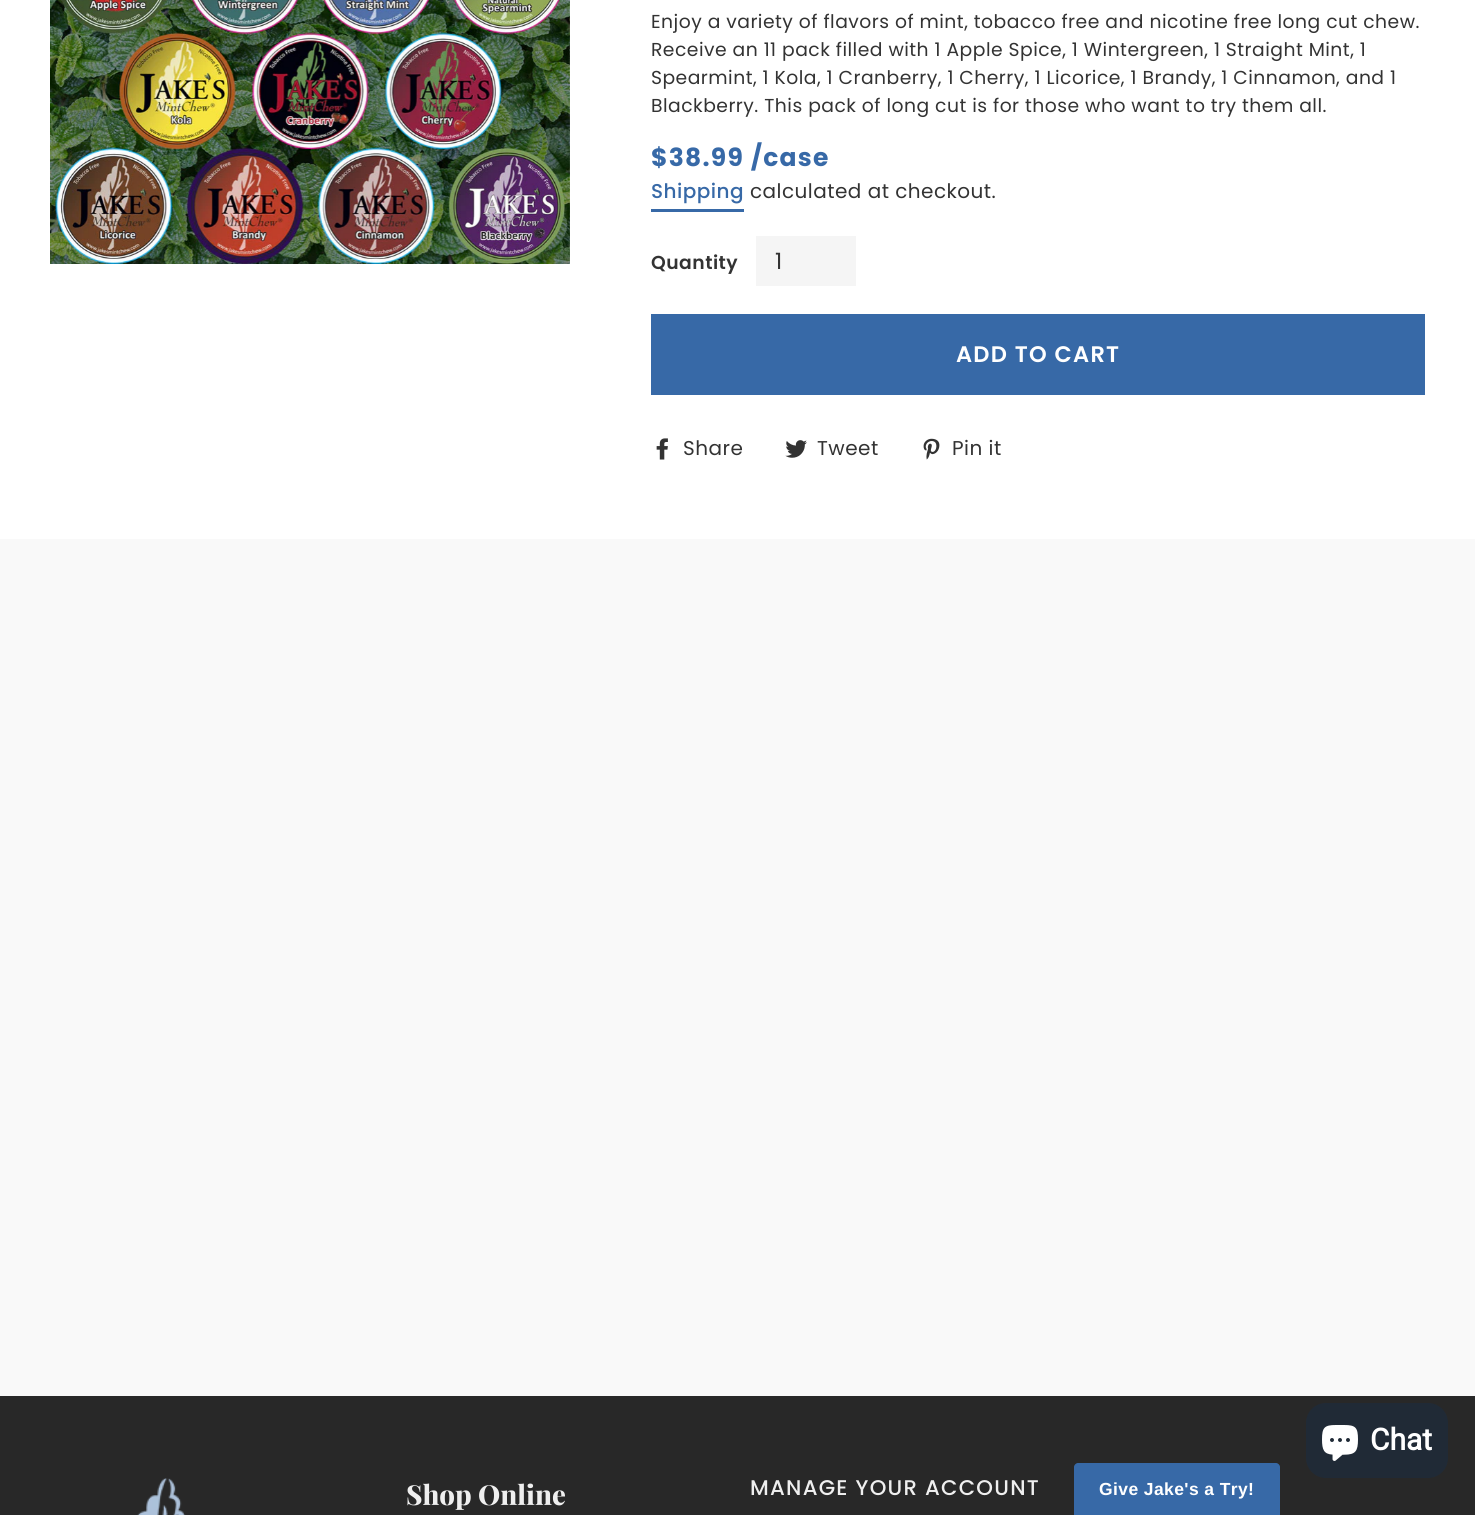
import math
import cairo

surface = cairo.ImageSurface(cairo.FORMAT_RGB24, 1475, 1515)
cr = cairo.Context(surface)
options = cairo.FontOptions()
options.set_hint_metrics(cairo.HINT_METRICS_OFF)
options.set_hint_style(cairo.HINT_STYLE_NONE)
cr.set_font_options(options)
cr.set_miter_limit(4)


def rgb(code):
    cr.set_source_rgb(*(v / 255 for v in bytes.fromhex(code[-6:])))


def tracked(x, y, s, letter, word):
    cr.move_to(x, y)
    for ch in s:
        cr.show_text(ch)
        cr.rel_move_to(letter + word * (ch == ' '), 0)


def rrect(x, y, w, h, r):
    cr.new_sub_path()
    for i, (u, v) in enumerate([(x + w - r, y + h - r), (x + r, y + h - r), (x + r, y + r), (x + w - r, y + r)]):
        cr.arc(u, v, r, i * math.pi / 2, (i + 1) * math.pi / 2)
    cr.close_path()


def image(path, x, y, w, h):
    cr.save()
    cr.set_source_surface(cairo.ImageSurface.create_from_png(path), x, y)
    cr.rectangle(x, y, w, h)
    cr.fill()
    cr.restore()


rgb("#ffffff")
cr.paint()
image("img/1.png", 50, 0, 520, 264)
for x, y, w, h, color in [
    (651, 209, 93, 3, "#3769a7"),
    (756, 236, 100, 50, "#f5f5f5"),
    (651, 314, 774, 81, "#3769a7"),
]:
    rgb(color)
    cr.rectangle(x, y, w, h)
    cr.fill()
image("img/2.png", 656, 438, 12, 22)
image("img/3.png", 785, 440, 22, 18)
image("img/4.png", 923, 438, 17, 22)
rgb("#f9f9f9")
cr.rectangle(0, 539, 1475, 857)
cr.fill()
rgb("#282828")
cr.rectangle(0, 1396, 1475, 119)
cr.fill()
image("img/5.png", 137, 1478, 49, 37)
rgb("#202a36")
rrect(1306, 1403, 142, 75, 20)
cr.fill()
image("img/6.png", 1322, 1425, 36, 36)
rgb("#3769a7")
cr.new_path()
cr.move_to(1078, 1463)
cr.line_to(1276, 1463)
cr.curve_to(1278, 1463, 1280, 1465, 1280, 1467)
cr.line_to(1280, 1515)
cr.line_to(1074, 1515)
cr.line_to(1074, 1467)
cr.curve_to(1074, 1465, 1076, 1463, 1078, 1463)
cr.close_path()
cr.fill()
cr.select_font_face("Poppins")
cr.set_font_size(18.75)
rgb("#333333")
for x, y, s in [
    (651, 28, "Enjoy a variety of flavors of mint, tobacco free and nicotine free long cut chew."),
    (651, 56, "Receive an 11 pack filled with 1 Apple Spice, 1 Wintergreen, 1 Straight Mint, 1"),
    (651, 84, "Spearmint, 1 Kola, 1 Cranberry, 1 Cherry, 1 Licorice, 1 Brandy, 1 Cinnamon, and 1"),
    (651, 112, "Blackberry. This pack of long cut is for those who want to try them all."),
]:
    tracked(x, y, s, 0.47, 0)
cr.select_font_face("Poppins", cairo.FONT_SLANT_NORMAL, cairo.FONT_WEIGHT_BOLD)
cr.set_font_size(25)
rgb("#3769a7")
tracked(651, 166, "$38.99 /case", 1.25, 0)
cr.select_font_face("Poppins Medium")
cr.set_font_size(20)
tracked(651, 198, "Shipping", 0.47, 0)
cr.select_font_face("Poppins")
rgb("#333333")
tracked(750, 198, "calculated at checkout.", 0.47, 0)
cr.select_font_face("Poppins SemiBold")
cr.set_font_size(18.75)
tracked(651, 269, "Quantity", 0.47, 0)
cr.select_font_face("Poppins")
cr.set_font_size(22.5)
tracked(775, 269, "1", 1, 0)
cr.select_font_face("Poppins SemiBold")
rgb("#ffffff")
tracked(956, 362, "ADD TO CART", 1.25, 0)
cr.select_font_face("Poppins")
cr.set_font_size(20)
rgb("#333333")
for x, y, s in [
    (683, 455, "Share"),
    (817, 455, "Tweet"),
    (952, 455, "Pin it"),
]:
    tracked(x, y, s, 0.47, 0)
cr.select_font_face("Playfair Display ExtraBold")
cr.set_font_size(27.5)
rgb("#efefef")
cr.move_to(406, 1505)
cr.show_text("Shop Online")
cr.select_font_face("Poppins Medium")
cr.set_font_size(21.25)
tracked(750, 1495, "MANAGE YOUR ACCOUNT", 1.25, 0)
cr.select_font_face("Roboto", cairo.FONT_SLANT_NORMAL, cairo.FONT_WEIGHT_BOLD)
cr.set_font_size(30)
rgb("#ffffff")
cr.move_to(1370, 1450)
cr.show_text("Chat")
cr.select_font_face("Liberation Sans", cairo.FONT_SLANT_NORMAL, cairo.FONT_WEIGHT_BOLD)
cr.set_font_size(17.5)
tracked(1099, 1495, "Give Jake's a Try!", 0.4, 0)
surface.write_to_png("page.png")
